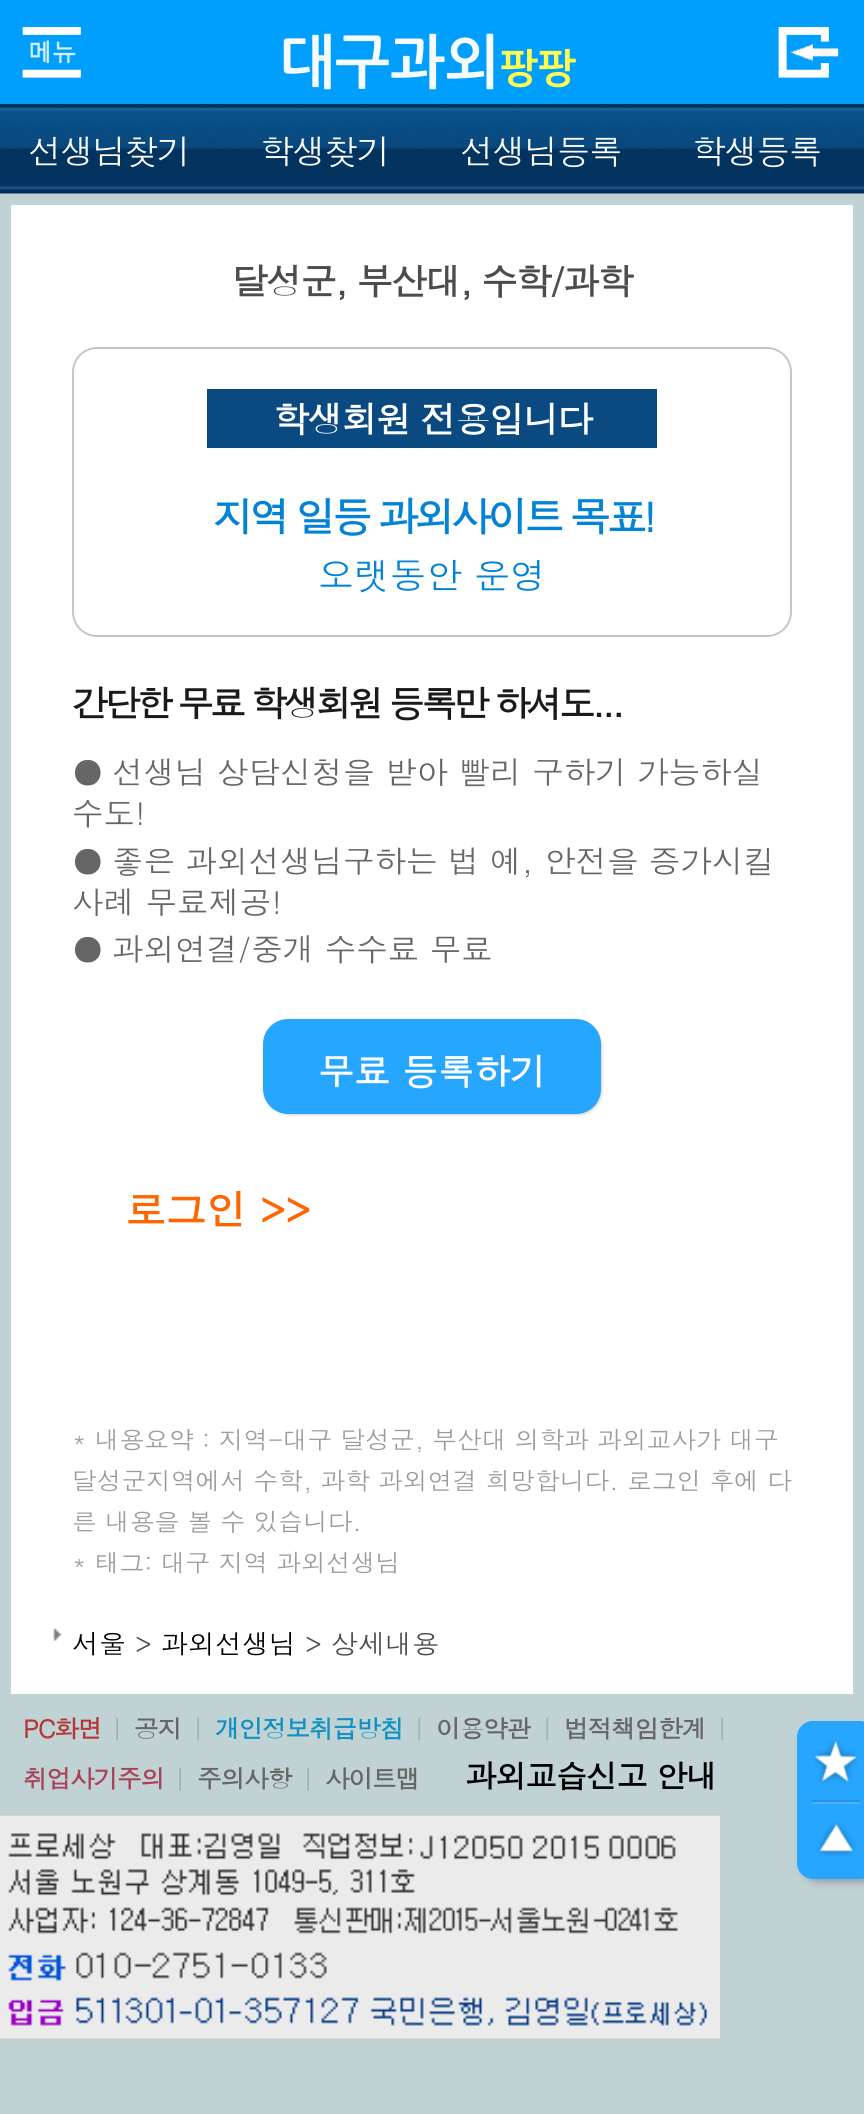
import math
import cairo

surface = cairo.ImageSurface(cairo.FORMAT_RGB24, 864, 2114)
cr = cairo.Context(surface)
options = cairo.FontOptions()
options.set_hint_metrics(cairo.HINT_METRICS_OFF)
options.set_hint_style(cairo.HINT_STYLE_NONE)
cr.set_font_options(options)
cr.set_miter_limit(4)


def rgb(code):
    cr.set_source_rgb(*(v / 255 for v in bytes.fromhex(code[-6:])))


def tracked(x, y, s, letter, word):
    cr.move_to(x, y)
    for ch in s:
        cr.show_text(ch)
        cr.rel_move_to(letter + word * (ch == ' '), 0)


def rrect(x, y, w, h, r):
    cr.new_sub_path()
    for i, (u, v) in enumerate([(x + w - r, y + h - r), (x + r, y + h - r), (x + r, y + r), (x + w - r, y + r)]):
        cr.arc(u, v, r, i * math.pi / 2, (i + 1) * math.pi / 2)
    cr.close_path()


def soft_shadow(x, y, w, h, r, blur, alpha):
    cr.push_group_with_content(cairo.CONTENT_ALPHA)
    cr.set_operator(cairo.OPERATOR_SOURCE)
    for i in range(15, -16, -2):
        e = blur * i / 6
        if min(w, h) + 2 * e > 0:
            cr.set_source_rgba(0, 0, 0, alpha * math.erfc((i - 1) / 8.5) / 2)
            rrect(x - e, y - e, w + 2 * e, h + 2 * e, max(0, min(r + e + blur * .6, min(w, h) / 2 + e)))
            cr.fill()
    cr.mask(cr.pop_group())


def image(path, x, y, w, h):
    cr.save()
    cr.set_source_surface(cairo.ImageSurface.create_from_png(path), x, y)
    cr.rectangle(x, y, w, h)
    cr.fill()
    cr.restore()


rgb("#c1d2d5")
cr.paint()
rgb("#009efd")
cr.rectangle(0, 0, 864, 104)
cr.fill()
image("img/1.png", 22, 27, 59, 51)
image("img/2.png", 778, 27, 61, 51)
image("img/3.png", 0, 104, 864, 90)
rgb("#ffffff")
cr.rectangle(11, 205, 842, 1489)
cr.fill()
rrect(73, 348, 718, 288, 24)
rgb("#c6c6c6")
cr.stroke()
rgb("#0a4a80")
cr.rectangle(207, 389, 450, 59)
cr.fill()
rgb("#000000")
soft_shadow(268, 1024, 333, 90, 23, 2, 0.3)
rgb("#27a6ff")
rrect(263, 1019, 338, 95, 25)
cr.fill()
image("img/4.png", 53, 1628, 9, 13)
image("img/5.png", 0, 1815, 720, 224)
rgb("#000000")
soft_shadow(803, 1728, 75, 153, 14, 4.5, 0.3)
rgb("#27a6ff")
rrect(797, 1721, 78, 158, 16)
cr.fill()
image("img/6.png", 813, 1740, 45, 44)
rgb("#2395e5")
cr.rectangle(812, 1800, 48, 2)
cr.fill()
rgb("#47b3ff")
cr.rectangle(812, 1802, 48, 2)
cr.fill()
image("img/7.png", 817, 1822, 39, 34)
cr.select_font_face("NanumGothic", cairo.FONT_SLANT_NORMAL, cairo.FONT_WEIGHT_BOLD)
cr.set_font_size(58.5)
rgb("#f5fbff")
cr.move_to(280, 83)
cr.show_text("대구과외")
cr.set_font_size(40.5)
rgb("#fffd4f")
cr.move_to(500, 83)
cr.show_text("팡팡")
cr.select_font_face("Dotum")
cr.set_font_size(33.75)
rgb("#ffffff")
for x, y, s in [
    (28, 164, "선생님찾기"),
    (260, 164, "학생찾기"),
    (460, 164, "선생님등록"),
    (692, 164, "학생등록"),
]:
    tracked(x, y, s, -1.5, 0)
cr.select_font_face("Dotum", cairo.FONT_SLANT_NORMAL, cairo.FONT_WEIGHT_BOLD)
cr.set_font_size(36)
rgb("#4d4c4c")
tracked(232, 295, "달성군, 부산대, 수학/과학", -1.75, 0)
rgb("#ffffff")
tracked(273, 433, "학생회원 전용입니다", -1.75, 0)
cr.set_font_size(40.5)
rgb("#0283d5")
tracked(213, 532, "지역 일등 과외사이트 목표!", -4, 0)
cr.select_font_face("Dotum")
cr.set_font_size(36)
cr.move_to(318, 589)
cr.show_text("오랫동안 운영")
cr.select_font_face("Dotum", cairo.FONT_SLANT_NORMAL, cairo.FONT_WEIGHT_BOLD)
rgb("#1a1a1a")
tracked(72, 717, "간단한 무료 학생회원 등록만 하셔도...", -3.6, 0)
cr.select_font_face("Dotum")
cr.set_font_size(31.5)
rgb("#666666")
for x, y, s in [
    (72, 784, "● 선생님 상담신청을 받아 빨리 구하기 가능하실"),
    (72, 825, "수도!"),
    (72, 873, "● 좋은 과외선생님구하는 법 예, 안전을 증가시킬"),
    (72, 914, "사례 무료제공!"),
    (72, 961, "● 과외연결/중개 수수료 무료"),
]:
    cr.move_to(x, y)
    cr.show_text(s)
cr.select_font_face("Dotum", cairo.FONT_SLANT_NORMAL, cairo.FONT_WEIGHT_BOLD)
cr.set_font_size(36)
rgb("#ffffff")
cr.move_to(318, 1085)
cr.show_text("무료 등록하기")
cr.set_font_size(40.5)
rgb("#ff6600")
cr.move_to(125, 1225)
cr.show_text("로그인 >>")
cr.select_font_face("Dotum")
cr.set_font_size(24.75)
rgb("#9c9c9c")
for x, y, s in [
    (72, 1449, "* 내용요약 : 지역-대구 달성군, 부산대 의학과 과외교사가 대구"),
    (72, 1490, "달성군지역에서 수학, 과학 과외연결 희망합니다. 로그인 후에 다"),
    (72, 1531, "른 내용을 볼 수 있습니다."),
    (72, 1572, "* 태그: 대구 지역 과외선생님"),
]:
    cr.move_to(x, y)
    cr.show_text(s)
cr.set_font_size(27)
rgb("#000000")
cr.move_to(72, 1654)
cr.show_text("서울")
rgb("#4d4c4c")
cr.move_to(135, 1654)
cr.show_text(">")
rgb("#000000")
cr.move_to(161, 1654)
cr.show_text("과외선생님")
rgb("#4d4c4c")
cr.move_to(305, 1654)
cr.show_text("> 상세내용")
cr.select_font_face("Dotum", cairo.FONT_SLANT_NORMAL, cairo.FONT_WEIGHT_BOLD)
cr.set_font_size(24.75)
rgb("#b53636")
tracked(23, 1738, "PC화면", -1.25, 0)
cr.select_font_face("Dotum")
rgb("#aaaaaa")
cr.move_to(111, 1738)
cr.show_text("|")
cr.select_font_face("Dotum", cairo.FONT_SLANT_NORMAL, cairo.FONT_WEIGHT_BOLD)
rgb("#666666")
tracked(134, 1738, "공지", -1.25, 0)
cr.select_font_face("Dotum")
rgb("#aaaaaa")
cr.move_to(192, 1738)
cr.show_text("|")
cr.select_font_face("Dotum", cairo.FONT_SLANT_NORMAL, cairo.FONT_WEIGHT_BOLD)
rgb("#0f91c1")
tracked(215, 1738, "개인정보취급방침", -1.25, 0)
cr.select_font_face("Dotum")
rgb("#aaaaaa")
cr.move_to(413, 1738)
cr.show_text("|")
cr.select_font_face("Dotum", cairo.FONT_SLANT_NORMAL, cairo.FONT_WEIGHT_BOLD)
rgb("#666666")
tracked(436, 1738, "이용약관", -1.25, 0)
cr.select_font_face("Dotum")
rgb("#aaaaaa")
cr.move_to(541, 1738)
cr.show_text("|")
cr.select_font_face("Dotum", cairo.FONT_SLANT_NORMAL, cairo.FONT_WEIGHT_BOLD)
rgb("#666666")
tracked(564, 1738, "법적책임한계", -1.25, 0)
cr.select_font_face("Dotum")
rgb("#aaaaaa")
cr.move_to(716, 1738)
cr.show_text("|")
cr.select_font_face("Dotum", cairo.FONT_SLANT_NORMAL, cairo.FONT_WEIGHT_BOLD)
rgb("#ab425b")
tracked(23, 1788, "취업사기주의", -1.25, 0)
cr.select_font_face("Dotum")
rgb("#aaaaaa")
cr.move_to(174, 1788)
cr.show_text("|")
cr.select_font_face("Dotum", cairo.FONT_SLANT_NORMAL, cairo.FONT_WEIGHT_BOLD)
rgb("#666666")
tracked(197, 1788, "주의사항", -1.25, 0)
cr.select_font_face("Dotum")
rgb("#aaaaaa")
cr.move_to(302, 1788)
cr.show_text("|")
cr.select_font_face("Dotum", cairo.FONT_SLANT_NORMAL, cairo.FONT_WEIGHT_BOLD)
rgb("#666666")
tracked(325, 1788, "사이트맵", -1.25, 0)
cr.set_font_size(31.5)
rgb("#000000")
tracked(465, 1788, "과외교습신고 안내", -1.25, 0)
surface.write_to_png("page.png")
